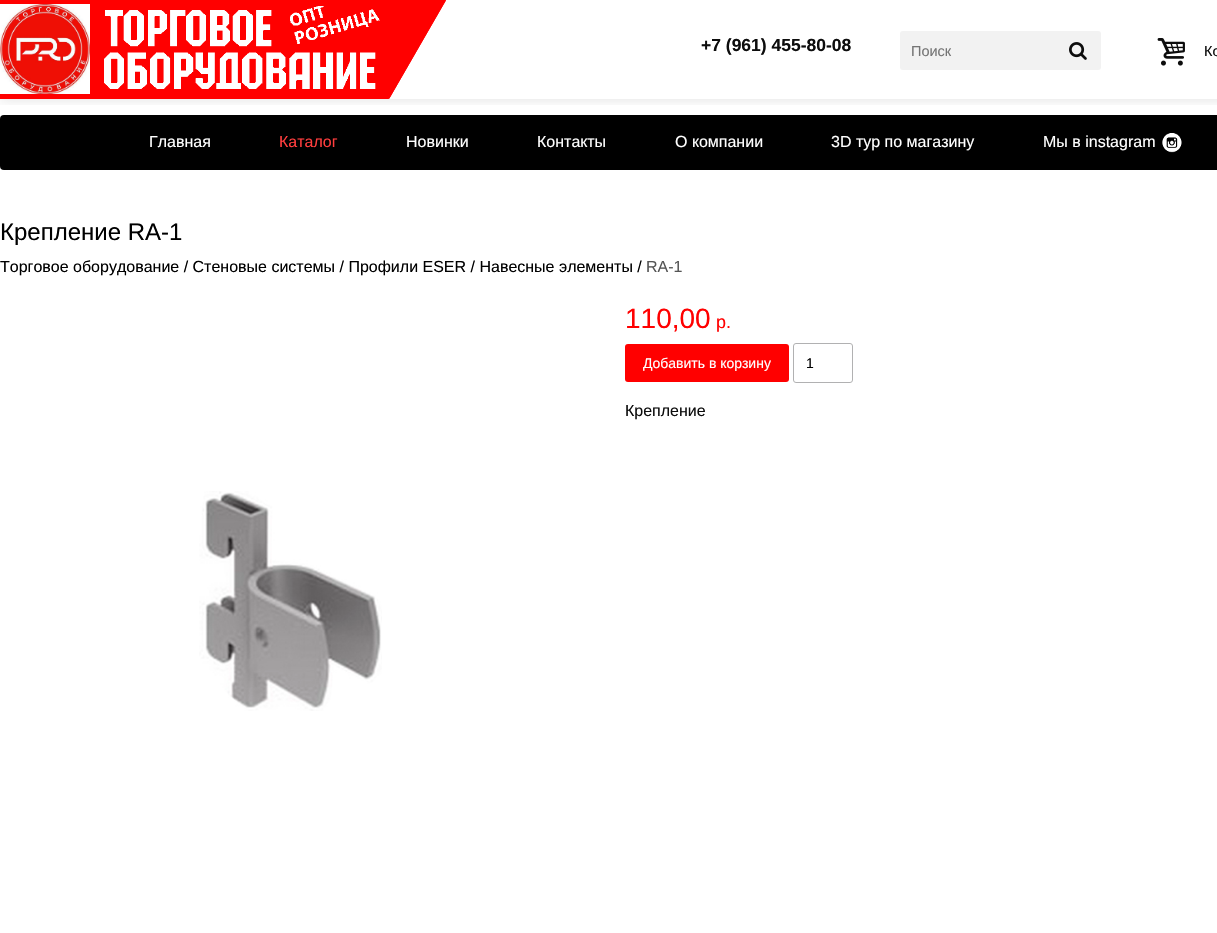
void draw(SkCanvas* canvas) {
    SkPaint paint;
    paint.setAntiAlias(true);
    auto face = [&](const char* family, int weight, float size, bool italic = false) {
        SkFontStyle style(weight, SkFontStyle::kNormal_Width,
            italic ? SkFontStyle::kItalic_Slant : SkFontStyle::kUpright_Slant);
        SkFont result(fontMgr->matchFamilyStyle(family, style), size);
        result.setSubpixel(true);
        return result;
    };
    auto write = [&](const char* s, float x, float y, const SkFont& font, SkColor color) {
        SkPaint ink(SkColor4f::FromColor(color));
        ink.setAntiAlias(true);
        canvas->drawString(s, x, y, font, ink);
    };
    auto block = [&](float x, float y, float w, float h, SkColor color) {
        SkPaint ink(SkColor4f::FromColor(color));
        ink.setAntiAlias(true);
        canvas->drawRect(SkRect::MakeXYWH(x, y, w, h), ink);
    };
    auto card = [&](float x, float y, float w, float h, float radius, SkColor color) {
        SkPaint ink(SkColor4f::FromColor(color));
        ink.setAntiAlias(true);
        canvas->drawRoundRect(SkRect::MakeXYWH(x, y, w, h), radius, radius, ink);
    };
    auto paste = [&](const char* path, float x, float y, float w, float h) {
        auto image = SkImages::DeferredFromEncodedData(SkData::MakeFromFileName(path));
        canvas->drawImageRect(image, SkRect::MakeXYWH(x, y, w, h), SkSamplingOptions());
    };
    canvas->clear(SK_ColorWHITE);
    canvas->save();
    canvas->clipRect(SkRect::MakeXYWH(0, 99, 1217, 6));
    paint.setColor(SkColorSetARGB(31, 0, 0, 0));
    paint.setMaskFilter(SkMaskFilter::MakeBlur(kNormal_SkBlurStyle, 6.5f));
    canvas->drawRect(SkRect::MakeXYWH(0, 0, 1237, 99), paint);
    paint.setMaskFilter(nullptr);
    canvas->restore();
    block(0, 0, 388, 99, SkColorSetRGB(255, 0, 0));
    paste("pic1.png", 0, 4, 90, 90);
    paint.setColor(SkColorSetRGB(255, 0, 0));
    canvas->drawPath(SkPathBuilder().moveTo(446, 0).lineTo(389, 99).lineTo(318, 58).lineTo(375, -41).close().detach(), paint);
    paint.setStyle(SkPaint::kStroke_Style);
    paint.setStrokeWidth(1);
    canvas->drawPath(SkPathBuilder().moveTo(445.5f, 0.5f).lineTo(389, 98.5f).lineTo(318.5f, 58).lineTo(375, -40).close().detach(), paint);
    paste("pic2.png", 104, 6, 276, 83);
    auto kFont1 = face("Liberation Sans", 700, 17.5f);
    write("+7 (961) 455-80-08", 701, 51, kFont1, SkColorSetRGB(13, 13, 13));
    card(900, 31, 201, 39, 3, SkColorSetRGB(242, 242, 242));
    auto kFont2 = face("Liberation Sans", 400, 14.5f);
    write("Поиск", 911, 56, kFont2, SkColorSetRGB(117, 117, 117));
    paste("pic3.png", 1069, 42, 18, 18);
    paste("pic4.png", 1157, 38, 28, 28);
    write("Ко", 1204, 56, kFont2, SkColorSetRGB(13, 13, 13));
    card(0, 115, 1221, 55, 4, SK_ColorBLACK);
    auto kFont3 = face("Liberation Sans", 400, 16);
    write("Главная", 149, 147, kFont3, SK_ColorWHITE);
    write("Каталог", 279, 147, kFont3, SkColorSetRGB(255, 61, 61));
    write("Новинки", 406, 147, kFont3, SK_ColorWHITE);
    write("Контакты", 537, 147, kFont3, SK_ColorWHITE);
    write("О компании", 675, 147, kFont3, SK_ColorWHITE);
    write("3D тур по магазину", 831, 147, kFont3, SK_ColorWHITE);
    paste("pic5.png", 1162, 133, 20, 20);
    write("Мы в instagram", 1043, 147, kFont3, SK_ColorWHITE);
    auto kFont4 = face("Liberation Sans", 400, 24);
    write("Крепление RA-1", 0, 240, kFont4, SK_ColorBLACK);
    write("Торговое оборудование / Стеновые системы / Профили ESER / Навесные элементы /", 0, 272, kFont3, SK_ColorBLACK);
    write("RA-1", 646, 272, kFont3, SkColorSetRGB(85, 85, 85));
    auto kFont5 = face("Liberation Sans", 400, 28);
    write("110,00", 625, 328, kFont5, SkColorSetRGB(255, 0, 0));
    auto kFont6 = face("Liberation Sans", 400, 18);
    write("р.", 716, 328, kFont6, SkColorSetRGB(255, 0, 0));
    card(625, 344, 164, 38, 3, SkColorSetRGB(255, 0, 0));
    auto kFont7 = face("Liberation Sans", 400, 14);
    write("Добавить в корзину", 643, 368, kFont7, SK_ColorWHITE);
    paint.setColor(SkColorSetRGB(177, 177, 178));
    canvas->drawRoundRect(SkRect::MakeXYWH(793.5f, 343.5f, 59, 39), 2.5f, 2.5f, paint);
    write("1", 806, 368, kFont7, SK_ColorBLACK);
    write("Крепление", 625, 416, kFont3, SkColorSetRGB(13, 13, 13));
    paste("pic6.png", 199, 491, 183, 220);
}
